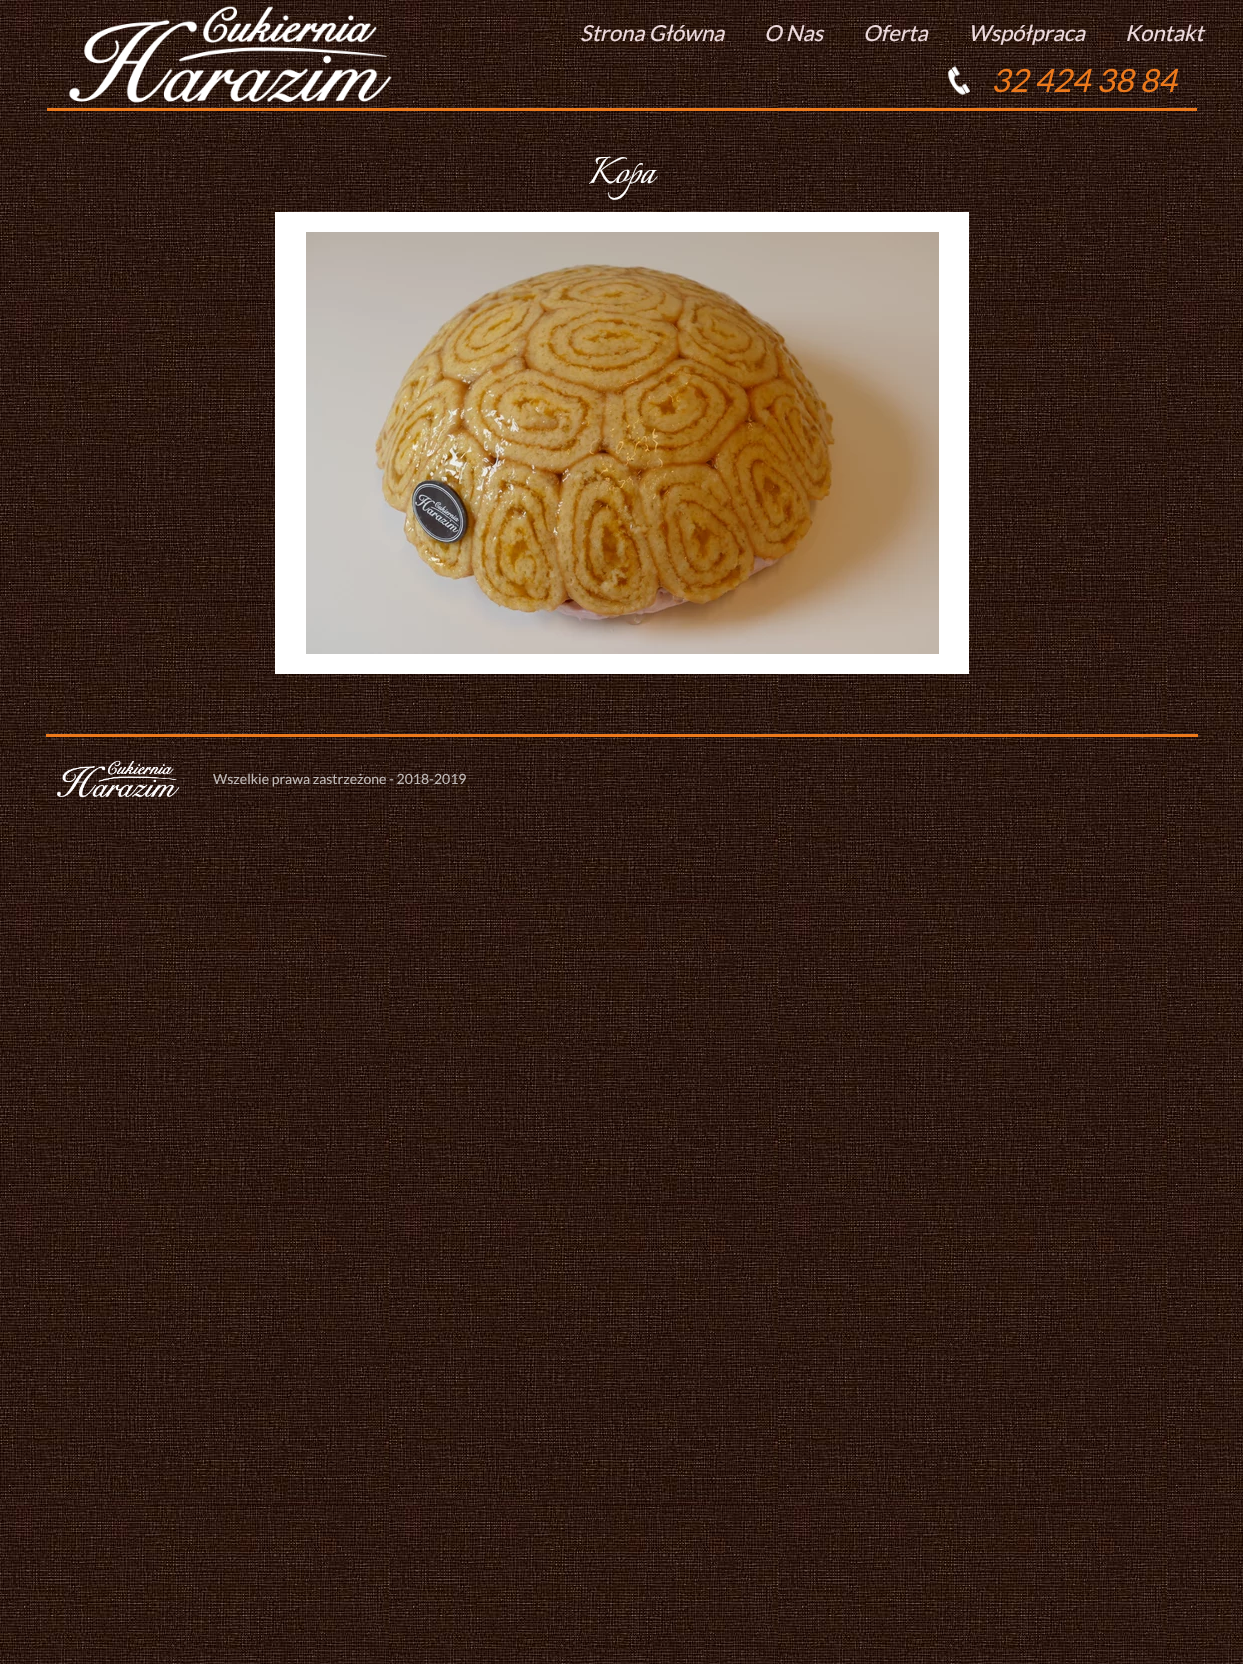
void draw(SkCanvas* canvas) {
    SkPaint paint;
    paint.setAntiAlias(true);
    auto face = [&](const char* family, int weight, float size, bool italic = false) {
        SkFontStyle style(weight, SkFontStyle::kNormal_Width,
            italic ? SkFontStyle::kItalic_Slant : SkFontStyle::kUpright_Slant);
        SkFont result(fontMgr->matchFamilyStyle(family, style), size);
        result.setSubpixel(true);
        return result;
    };
    auto write = [&](const char* s, float x, float y, const SkFont& font, SkColor color) {
        SkPaint ink(SkColor4f::FromColor(color));
        ink.setAntiAlias(true);
        canvas->drawString(s, x, y, font, ink);
    };
    auto block = [&](float x, float y, float w, float h, SkColor color) {
        SkPaint ink(SkColor4f::FromColor(color));
        ink.setAntiAlias(true);
        canvas->drawRect(SkRect::MakeXYWH(x, y, w, h), ink);
    };
    auto paste = [&](const char* path, float x, float y, float w, float h) {
        auto image = SkImages::DeferredFromEncodedData(SkData::MakeFromFileName(path));
        canvas->drawImageRect(image, SkRect::MakeXYWH(x, y, w, h), SkSamplingOptions());
    };
    canvas->clear(SK_ColorWHITE);
    paste("pic1.png", 0, 0, 1243, 1664);
    paste("pic2.png", 69, 6, 327, 97);
    auto kFont1 = face("Lato", 400, 22, true);
    write("Strona Główna", 580, 41, kFont1, SkColorSetRGB(237, 218, 221));
    write("O Nas", 764, 41, kFont1, SkColorSetRGB(237, 218, 221));
    write("Oferta", 863, 41, kFont1, SkColorSetRGB(237, 218, 221));
    write("Współpraca", 968, 41, kFont1, SkColorSetRGB(237, 218, 221));
    write("Kontakt", 1125, 41, kFont1, SkColorSetRGB(237, 218, 221));
    paste("pic3.png", 948, 66, 22, 29);
    auto kFont2 = face("Lato", 400, 32, true);
    write("32 424 38 84", 991, 92, kFont2, SkColorSetRGB(237, 121, 27));
    block(47, 108, 1150, 3, SkColorSetRGB(237, 121, 27));
    auto kFont3 = face("Italianno", 400, 48);
    write("Kopa", 589, 183, kFont3, SK_ColorWHITE);
    block(295, 232, 654, 422, SK_ColorWHITE);
    paint.setStyle(SkPaint::kStroke_Style);
    paint.setStrokeWidth(20);
    paint.setColor(SK_ColorWHITE);
    canvas->drawPath(SkPathBuilder().moveTo(285, 222).lineTo(959, 222).lineTo(959, 664).lineTo(285, 664).close().detach(), paint);
    paste("pic4.png", 306, 232, 633, 422);
    block(46, 734, 1152, 3, SkColorSetRGB(237, 121, 27));
    paste("pic5.png", 57, 760, 123, 38);
    auto kFont4 = face("Lato", 400, 14);
    write("Wszelkie prawa zastrzeżone - 2018-2019", 213, 784, kFont4, SkColorSetRGB(192, 186, 184));
}
